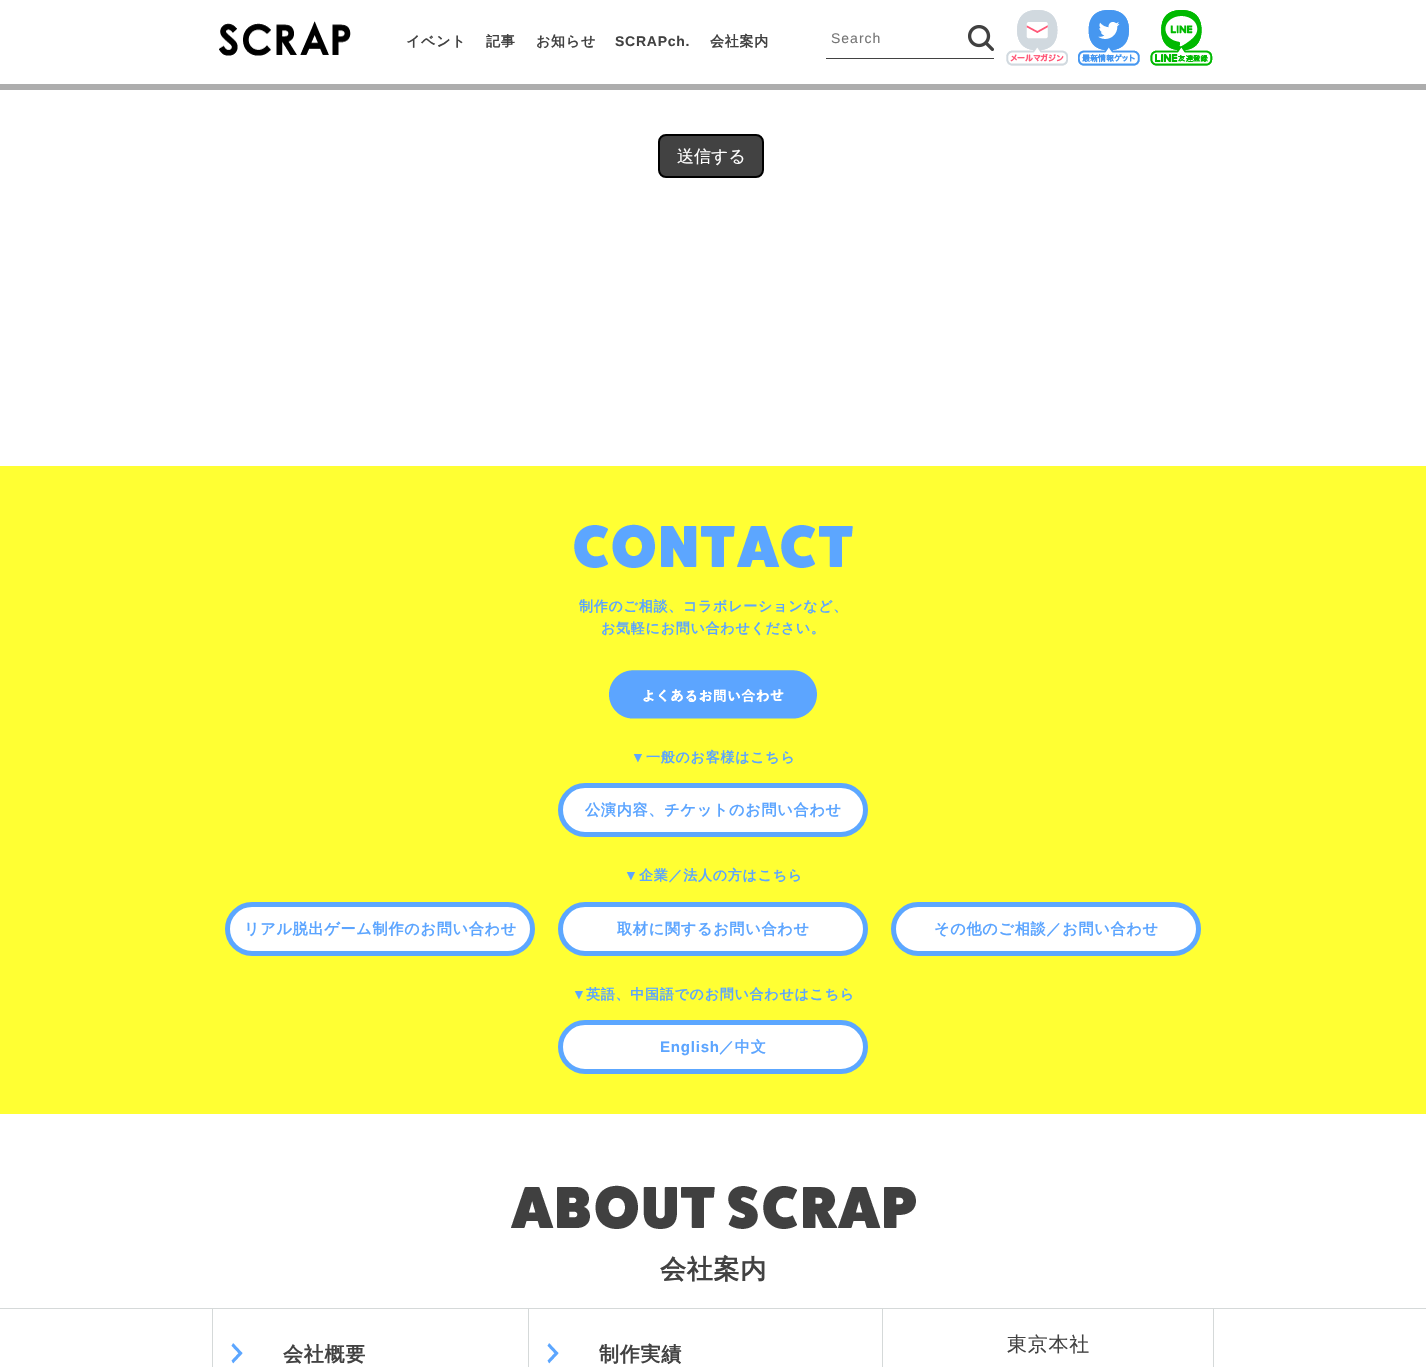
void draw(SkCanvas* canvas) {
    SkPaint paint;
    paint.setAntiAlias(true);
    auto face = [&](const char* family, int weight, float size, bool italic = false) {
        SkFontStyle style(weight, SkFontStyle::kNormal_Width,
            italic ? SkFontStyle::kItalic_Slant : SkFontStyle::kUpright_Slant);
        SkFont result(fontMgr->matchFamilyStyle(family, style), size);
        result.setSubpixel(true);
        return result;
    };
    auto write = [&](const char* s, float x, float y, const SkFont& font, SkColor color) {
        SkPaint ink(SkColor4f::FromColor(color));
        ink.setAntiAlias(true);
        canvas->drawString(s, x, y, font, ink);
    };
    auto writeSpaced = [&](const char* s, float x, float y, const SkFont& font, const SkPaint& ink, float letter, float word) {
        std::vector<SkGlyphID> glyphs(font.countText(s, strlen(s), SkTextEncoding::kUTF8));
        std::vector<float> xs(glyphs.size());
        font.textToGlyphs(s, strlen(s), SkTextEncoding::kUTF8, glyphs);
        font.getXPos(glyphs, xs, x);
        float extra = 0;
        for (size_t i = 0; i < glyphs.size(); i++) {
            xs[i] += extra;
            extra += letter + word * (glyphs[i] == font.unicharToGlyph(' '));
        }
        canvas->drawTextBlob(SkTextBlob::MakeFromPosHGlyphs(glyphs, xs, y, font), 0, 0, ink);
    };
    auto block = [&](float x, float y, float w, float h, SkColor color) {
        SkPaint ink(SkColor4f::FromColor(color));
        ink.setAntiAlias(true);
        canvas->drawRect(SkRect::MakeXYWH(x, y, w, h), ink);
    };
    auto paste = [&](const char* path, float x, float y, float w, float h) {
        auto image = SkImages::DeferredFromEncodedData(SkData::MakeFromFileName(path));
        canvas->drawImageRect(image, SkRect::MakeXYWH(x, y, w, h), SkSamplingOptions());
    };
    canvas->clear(SK_ColorWHITE);
    paste("pic1.png", 219, 21, 132, 35);
    auto kFont1 = face("WenQuanYi Zen Hei", 700, 14);
    paint.setColor(SkColorSetRGB(66, 66, 66));
    writeSpaced("イベント", 406, 46, kFont1, paint, 0.75f, 0);
    writeSpaced("記事", 486, 46, kFont1, paint, 0.75f, 0);
    writeSpaced("お知らせ", 536, 46, kFont1, paint, 0.75f, 0);
    auto kFont2 = face("Liberation Sans", 700, 14);
    writeSpaced("SCRAPch.", 615, 46, kFont2, paint, 0.75f, 0);
    writeSpaced("会社案内", 710, 46, kFont1, paint, 0.75f, 0);
    block(826, 58, 168, 1, SkColorSetRGB(66, 66, 66));
    auto kFont3 = face("Liberation Sans", 400, 14);
    paint.setColor(SkColorSetRGB(117, 117, 117));
    writeSpaced("Search", 831, 43, kFont3, paint, 1, 0);
    paste("pic2.png", 968, 25, 26, 26);
    paste("pic3.png", 1006, 10, 62, 56);
    paste("pic4.png", 1006, 10, 62, 56);
    paste("pic5.png", 1078, 10, 62, 56);
    paste("pic6.png", 1078, 10, 62, 56);
    paste("pic7.png", 1150, 10, 63, 56);
    paste("pic8.png", 1150, 10, 63, 56);
    block(0, 84, 1426, 6, SkColorSetARGB(102, 51, 51, 51));
    paint.setColor(SkColorSetRGB(66, 66, 66));
    canvas->drawRoundRect(SkRect::MakeXYWH(659, 135, 104, 42), 7, 7, paint);
    paint.setStyle(SkPaint::kStroke_Style);
    paint.setStrokeWidth(2);
    paint.setColor(SK_ColorBLACK);
    canvas->drawRoundRect(SkRect::MakeXYWH(659, 135, 104, 42), 7, 7, paint);
    auto kFont4 = face("WenQuanYi Zen Hei", 500, 17);
    write("送信する", 677, 162, kFont4, SK_ColorWHITE);
    block(0, 466, 1426, 648, SkColorSetRGB(255, 255, 51));
    paste("pic9.png", 574, 524, 279, 44);
    paint.setStyle(SkPaint::kFill_Style);
    paint.setColor(SkColorSetRGB(92, 165, 255));
    writeSpaced("制作のご相談、コラボレーションなど、", 579, 611, kFont1, paint, 0.75f, 0);
    writeSpaced("お気軽にお問い合わせください。", 601, 633, kFont1, paint, 0.75f, 0);
    paste("pic10.png", 609, 670, 208, 49);
    writeSpaced("▼", 631, 762, kFont2, paint, 0.75f, 0);
    writeSpaced("一般のお客様はこちら", 646, 762, kFont1, paint, 0.75f, 0);
    paint.setColor(SK_ColorWHITE);
    canvas->drawRoundRect(SkRect::MakeXYWH(560.5f, 785.5f, 305, 49), 24.5f, 24.5f, paint);
    paint.setStyle(SkPaint::kStroke_Style);
    paint.setStrokeWidth(5);
    paint.setColor(SkColorSetRGB(92, 167, 255));
    canvas->drawRoundRect(SkRect::MakeXYWH(560.5f, 785.5f, 305, 49), 24.5f, 24.5f, paint);
    auto kFont5 = face("WenQuanYi Zen Hei", 700, 15.1f);
    paint.setStyle(SkPaint::kFill_Style);
    paint.setColor(SkColorSetRGB(92, 165, 255));
    writeSpaced("公演内容、チケットのお問い合わせ", 585, 815, kFont5, paint, 0.75f, 0);
    writeSpaced("▼", 624, 880, kFont2, paint, 0.75f, 0);
    writeSpaced("企業／法人の方はこちら", 639, 880, kFont1, paint, 0.75f, 0);
    paint.setColor(SK_ColorWHITE);
    canvas->drawRoundRect(SkRect::MakeXYWH(227.5f, 904.5f, 305, 49), 24.5f, 24.5f, paint);
    paint.setStyle(SkPaint::kStroke_Style);
    paint.setColor(SkColorSetRGB(92, 167, 255));
    canvas->drawRoundRect(SkRect::MakeXYWH(227.5f, 904.5f, 305, 49), 24.5f, 24.5f, paint);
    paint.setStyle(SkPaint::kFill_Style);
    paint.setColor(SkColorSetRGB(92, 165, 255));
    writeSpaced("リアル脱出ゲーム制作のお問い合わせ", 244, 934, kFont5, paint, 0.75f, 0);
    paint.setColor(SK_ColorWHITE);
    canvas->drawRoundRect(SkRect::MakeXYWH(560.5f, 904.5f, 305, 49), 24.5f, 24.5f, paint);
    paint.setStyle(SkPaint::kStroke_Style);
    paint.setColor(SkColorSetRGB(92, 167, 255));
    canvas->drawRoundRect(SkRect::MakeXYWH(560.5f, 904.5f, 305, 49), 24.5f, 24.5f, paint);
    paint.setStyle(SkPaint::kFill_Style);
    paint.setColor(SkColorSetRGB(92, 165, 255));
    writeSpaced("取材に関するお問い合わせ", 617, 934, kFont5, paint, 0.75f, 0);
    paint.setColor(SK_ColorWHITE);
    canvas->drawRoundRect(SkRect::MakeXYWH(893.5f, 904.5f, 305, 49), 24.5f, 24.5f, paint);
    paint.setStyle(SkPaint::kStroke_Style);
    paint.setColor(SkColorSetRGB(92, 167, 255));
    canvas->drawRoundRect(SkRect::MakeXYWH(893.5f, 904.5f, 305, 49), 24.5f, 24.5f, paint);
    paint.setStyle(SkPaint::kFill_Style);
    paint.setColor(SkColorSetRGB(92, 165, 255));
    writeSpaced("その他のご相談／お問い合わせ", 934, 934, kFont5, paint, 0.75f, 0);
    writeSpaced("▼", 572, 999, kFont2, paint, 0.75f, 0);
    writeSpaced("英語、中国語でのお問い合わせはこちら", 586, 999, kFont1, paint, 0.75f, 0);
    paint.setColor(SK_ColorWHITE);
    canvas->drawRoundRect(SkRect::MakeXYWH(560.5f, 1022.5f, 305, 49), 24.5f, 24.5f, paint);
    paint.setStyle(SkPaint::kStroke_Style);
    paint.setColor(SkColorSetRGB(92, 167, 255));
    canvas->drawRoundRect(SkRect::MakeXYWH(560.5f, 1022.5f, 305, 49), 24.5f, 24.5f, paint);
    auto kFont6 = face("Liberation Sans", 700, 15.1f);
    paint.setStyle(SkPaint::kFill_Style);
    paint.setColor(SkColorSetRGB(92, 165, 255));
    writeSpaced("English", 660, 1052, kFont6, paint, 0.75f, 0);
    writeSpaced("／中文", 719, 1052, kFont5, paint, 0.75f, 0);
    paste("pic11.png", 511, 1185, 405, 44);
    auto kFont7 = face("WenQuanYi Zen Hei", 700, 26);
    paint.setColor(SkColorSetRGB(66, 66, 66));
    writeSpaced("会社案内", 660, 1278, kFont7, paint, 0.75f, 0);
    block(0, 1308, 1426, 1, SkColorSetRGB(213, 217, 217));
    block(1213, 1309, 1, 58, SkColorSetRGB(213, 217, 217));
    block(212, 1309, 1, 58, SkColorSetRGB(213, 217, 217));
    block(882, 1309, 1, 58, SkColorSetRGB(213, 217, 217));
    paste("pic12.png", 231, 1343, 12, 21);
    block(528, 1309, 1, 58, SkColorSetRGB(213, 217, 217));
    auto kFont8 = face("WenQuanYi Zen Hei", 700, 20);
    writeSpaced("会社概要", 283, 1361, kFont8, paint, 0.75f, 0);
    paste("pic12.png", 547, 1343, 12, 21);
    writeSpaced("制作実績", 599, 1361, kFont8, paint, 0.75f, 0);
    auto kFont9 = face("WenQuanYi Zen Hei", 500, 20);
    writeSpaced("東京本社", 1007, 1351, kFont9, paint, 0.75f, 0);
}
